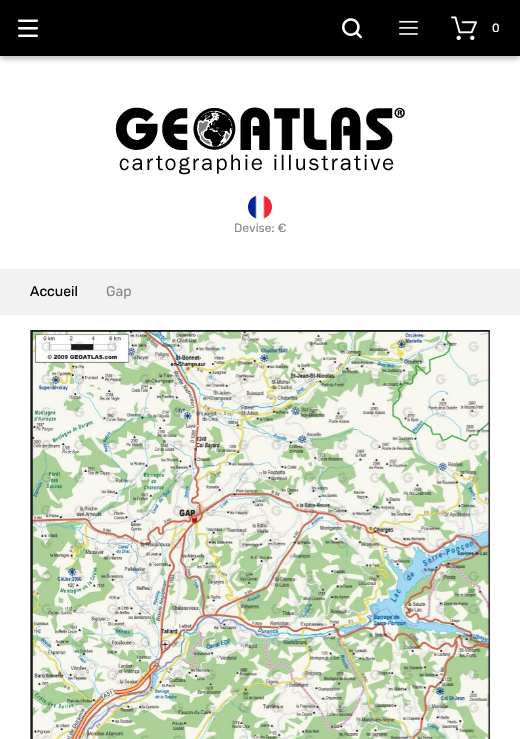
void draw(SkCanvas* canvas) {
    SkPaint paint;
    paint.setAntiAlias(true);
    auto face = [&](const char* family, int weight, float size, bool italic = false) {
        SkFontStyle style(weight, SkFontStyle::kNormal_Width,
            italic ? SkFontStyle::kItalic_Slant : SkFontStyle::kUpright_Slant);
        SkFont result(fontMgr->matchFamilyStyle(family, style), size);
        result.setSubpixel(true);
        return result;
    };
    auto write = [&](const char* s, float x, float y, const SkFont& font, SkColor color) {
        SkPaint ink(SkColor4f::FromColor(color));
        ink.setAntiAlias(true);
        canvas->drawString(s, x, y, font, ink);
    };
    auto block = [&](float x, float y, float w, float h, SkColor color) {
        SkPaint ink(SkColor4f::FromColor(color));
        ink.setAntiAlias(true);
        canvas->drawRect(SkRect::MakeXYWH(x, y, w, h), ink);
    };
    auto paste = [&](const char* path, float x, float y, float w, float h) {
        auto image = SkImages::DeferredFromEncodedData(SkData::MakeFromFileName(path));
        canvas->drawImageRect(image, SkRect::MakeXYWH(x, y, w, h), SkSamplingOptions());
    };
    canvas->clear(SK_ColorWHITE);
    paint.setColor(SkColorSetARGB(64, 0, 0, 0));
    paint.setMaskFilter(SkMaskFilter::MakeBlur(kNormal_SkBlurStyle, 2.5f));
    canvas->drawRect(SkRect::MakeXYWH(0, 3, 520, 56), paint);
    paint.setMaskFilter(nullptr);
    block(0, 0, 520, 56, SK_ColorBLACK);
    paste("pic1.png", 18, 19, 20, 18);
    paste("pic2.png", 342, 18, 20, 21);
    paste("pic3.png", 399, 20, 19, 15);
    paste("pic4.png", 451, 16, 26, 24);
    auto kFont1 = face("Rubik", 400, 12);
    write("0", 492, 32, kFont1, SK_ColorWHITE);
    paste("pic5.png", 115, 107, 290, 68);
    paste("pic6.png", 248, 195, 24, 24);
    write("Devise: €", 234, 232, kFont1, SkColorSetRGB(136, 136, 136));
    block(0, 269, 520, 46, SkColorSetRGB(242, 242, 242));
    auto kFont2 = face("Rubik", 400, 14);
    write("Accueil", 30, 296, kFont2, SK_ColorBLACK);
    write("Gap", 106, 296, kFont2, SkColorSetRGB(136, 136, 136));
    paste("pic7.png", 30, 330, 460, 409);
}
